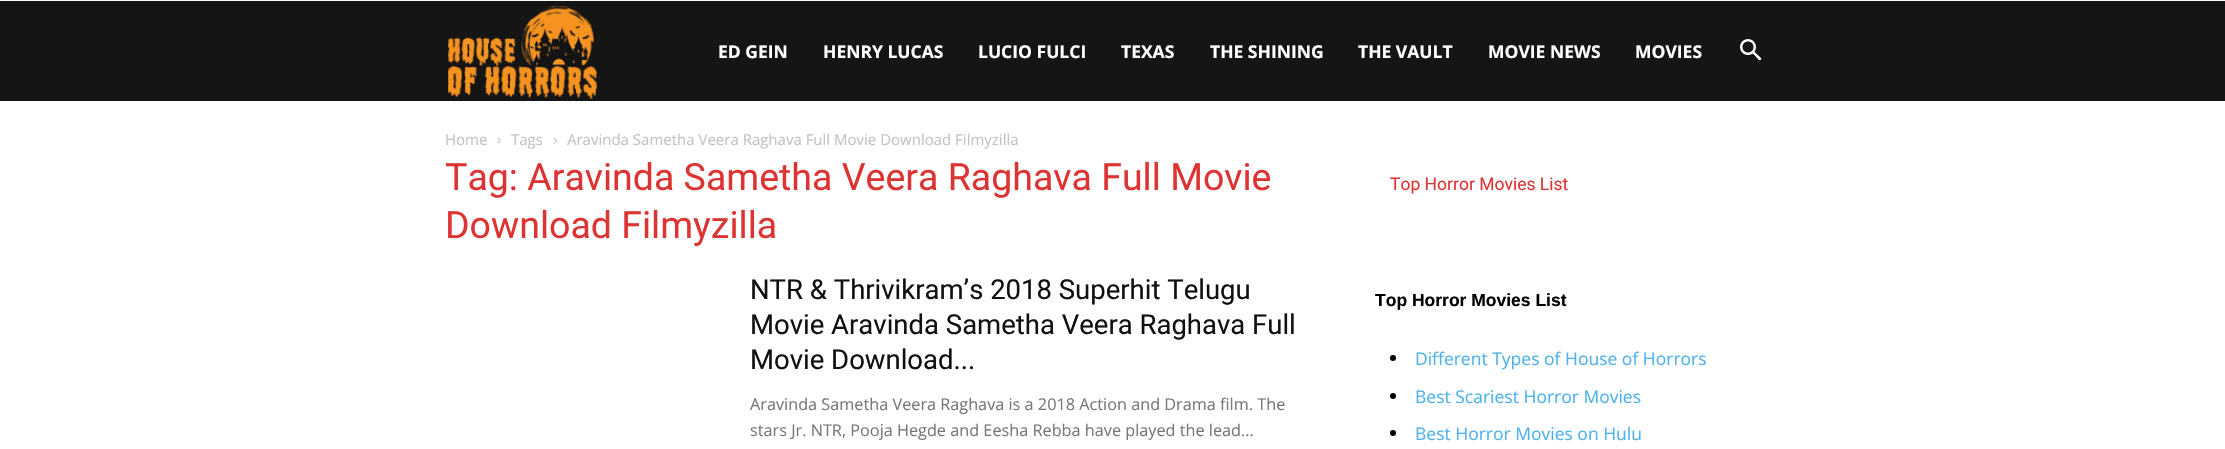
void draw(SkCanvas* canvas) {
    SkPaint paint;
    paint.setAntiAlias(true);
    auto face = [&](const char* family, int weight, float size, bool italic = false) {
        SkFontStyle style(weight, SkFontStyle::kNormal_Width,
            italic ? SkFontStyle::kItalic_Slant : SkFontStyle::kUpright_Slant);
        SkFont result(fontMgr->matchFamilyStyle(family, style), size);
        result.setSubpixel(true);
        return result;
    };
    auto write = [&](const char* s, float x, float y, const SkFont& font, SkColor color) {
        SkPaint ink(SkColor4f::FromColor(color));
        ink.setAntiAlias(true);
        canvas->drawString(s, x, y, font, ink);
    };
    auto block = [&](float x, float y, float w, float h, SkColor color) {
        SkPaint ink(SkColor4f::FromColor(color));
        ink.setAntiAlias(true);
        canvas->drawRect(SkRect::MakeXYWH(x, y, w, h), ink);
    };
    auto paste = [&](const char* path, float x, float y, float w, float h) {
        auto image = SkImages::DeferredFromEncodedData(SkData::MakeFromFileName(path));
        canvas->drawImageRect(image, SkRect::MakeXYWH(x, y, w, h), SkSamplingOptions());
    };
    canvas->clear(SK_ColorWHITE);
    block(0, 0, 2225, 1, SkColorSetRGB(249, 249, 249));
    block(0, 1, 2225, 100, SkColorSetRGB(21, 21, 21));
    paste("pic1.png", 448, 6, 149, 93);
    auto kFont1 = face("Open Sans", 700, 17.5f);
    write("ED GEIN", 718, 58, kFont1, SK_ColorWHITE);
    write("HENRY LUCAS", 823, 58, kFont1, SK_ColorWHITE);
    write("LUCIO FULCI", 978, 58, kFont1, SK_ColorWHITE);
    write("TEXAS", 1121, 58, kFont1, SK_ColorWHITE);
    write("THE SHINING", 1210, 58, kFont1, SK_ColorWHITE);
    write("THE VAULT", 1358, 58, kFont1, SK_ColorWHITE);
    write("MOVIE NEWS", 1488, 58, kFont1, SK_ColorWHITE);
    write("MOVIES", 1635, 58, kFont1, SK_ColorWHITE);
    paste("pic2.png", 1740, 39, 22, 22);
    auto kFont2 = face("Open Sans", 400, 15);
    write("Home", 445, 145, kFont2, SkColorSetRGB(195, 195, 195));
    paste("pic3.png", 497, 137, 4, 7);
    write("Tags", 511, 145, kFont2, SkColorSetRGB(195, 195, 195));
    paste("pic4.png", 553, 137, 4, 7);
    write("Aravinda Sametha Veera Raghava Full Movie Download Filmyzilla", 567, 145, kFont2, SkColorSetRGB(195, 195, 195));
    auto kFont3 = face("Roboto", 400, 37.5f);
    write("Tag: Aravinda Sametha Veera Raghava Full Movie", 445, 190, kFont3, SkColorSetRGB(221, 51, 51));
    write("Download Filmyzilla", 445, 238, kFont3, SkColorSetRGB(221, 51, 51));
    auto kFont4 = face("Roboto", 400, 27.5f);
    write("NTR & Thrivikram’s 2018 Superhit Telugu", 750, 299, kFont4, SkColorSetRGB(17, 17, 17));
    write("Movie Aravinda Sametha Veera Raghava Full", 750, 334, kFont4, SkColorSetRGB(17, 17, 17));
    write("Movie Download...", 750, 369, kFont4, SkColorSetRGB(17, 17, 17));
    auto kFont5 = face("Open Sans", 400, 16.25f);
    write("Aravinda Sametha Veera Raghava is a 2018 Action and Drama film. The", 750, 410, kFont5, SkColorSetRGB(119, 119, 119));
    write("stars Jr. NTR, Pooja Hegde and Eesha Rebba have played the lead...", 750, 436, kFont5, SkColorSetRGB(119, 119, 119));
    auto kFont6 = face("Roboto", 400, 17.5f);
    write("Top Horror Movies List", 1390, 190, kFont6, SkColorSetRGB(221, 51, 51));
    auto kFont7 = face("Liberation Sans", 700, 17.5f);
    write("Top Horror Movies List", 1375, 306, kFont7, SK_ColorBLACK);
    paint.setColor(SK_ColorBLACK);
    canvas->drawCircle(1393, 358, 3, paint);
    auto kFont8 = face("Open Sans", 400, 17.5f);
    write("Different Types of House of Horrors", 1415, 365, kFont8, SkColorSetRGB(77, 178, 236));
    canvas->drawCircle(1393, 396, 3, paint);
    write("Best Scariest Horror Movies", 1415, 403, kFont8, SkColorSetRGB(77, 178, 236));
    canvas->drawCircle(1393, 433, 3, paint);
    write("Best Horror Movies on Hulu", 1415, 440, kFont8, SkColorSetRGB(77, 178, 236));
}
